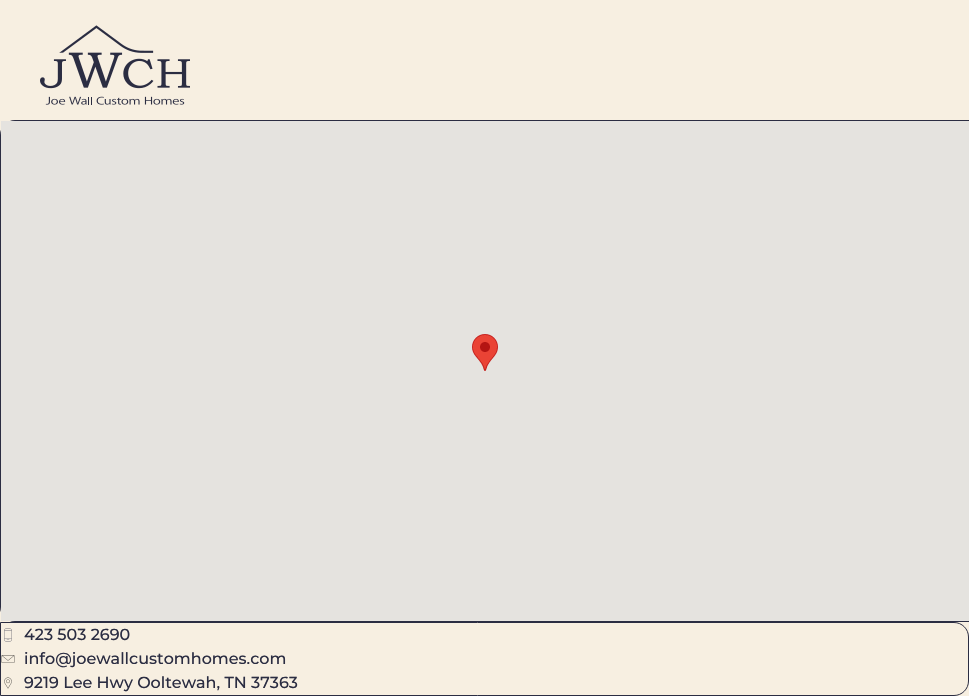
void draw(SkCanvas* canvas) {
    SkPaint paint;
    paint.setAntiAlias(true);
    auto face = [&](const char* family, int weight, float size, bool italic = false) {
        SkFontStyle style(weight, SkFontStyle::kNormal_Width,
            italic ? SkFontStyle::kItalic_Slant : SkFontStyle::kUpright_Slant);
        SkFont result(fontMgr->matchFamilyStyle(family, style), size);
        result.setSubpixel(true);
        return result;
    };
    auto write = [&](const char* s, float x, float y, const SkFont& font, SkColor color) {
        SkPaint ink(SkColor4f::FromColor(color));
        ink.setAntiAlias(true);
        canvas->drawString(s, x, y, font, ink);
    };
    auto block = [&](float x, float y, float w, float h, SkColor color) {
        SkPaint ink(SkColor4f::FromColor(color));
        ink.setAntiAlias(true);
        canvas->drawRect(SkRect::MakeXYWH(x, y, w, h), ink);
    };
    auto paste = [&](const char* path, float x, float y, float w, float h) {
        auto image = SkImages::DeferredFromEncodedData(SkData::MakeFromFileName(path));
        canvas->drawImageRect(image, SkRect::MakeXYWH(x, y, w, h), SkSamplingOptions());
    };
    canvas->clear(SkColorSetRGB(247, 239, 225));
    paste("pic1.png", 40, 25, 150, 80);
    paint.setColor(SkColorSetRGB(43, 45, 66));
    canvas->drawPath(SkPathBuilder(SkPathFillType::kEvenOdd).moveTo(15, 120).lineTo(969, 120).lineTo(969, 622).lineTo(15, 622).cubicTo(7, 622, 0, 615, 0, 607).lineTo(0, 135).cubicTo(0, 127, 7, 120, 15, 120).close().moveTo(15, 121).lineTo(969, 121).lineTo(969, 621).lineTo(15, 621).cubicTo(7, 621, 1, 615, 1, 607).lineTo(1, 135).cubicTo(1, 127, 7, 121, 15, 121).close().detach(), paint);
    block(1, 121, 968, 500, SkColorSetRGB(229, 227, 223));
    paste("pic2.png", 472, 334, 26, 37);
    paint.setStyle(SkPaint::kStroke_Style);
    paint.setStrokeWidth(1);
    canvas->drawPath(SkPathBuilder().moveTo(0.5f, 622.5f).lineTo(954, 622.5f).cubicTo(962, 622.5f, 968.5f, 629, 968.5f, 637).lineTo(968.5f, 681).cubicTo(968.5f, 689, 962, 695.5f, 954, 695.5f).lineTo(0.5f, 695.5f).close().detach(), paint);
    paste("pic3.png", 4, 628, 8, 14);
    auto kFont1 = face("Montserrat", 500, 16);
    write("423 503 2690", 24, 640, kFont1, SkColorSetRGB(43, 45, 66));
    paste("pic4.png", 1, 655, 14, 8);
    write("info@joewallcustomhomes.com", 24, 664, kFont1, SkColorSetRGB(43, 45, 66));
    paste("pic5.png", 4, 677, 8, 12);
    write("9219 Lee Hwy Ooltewah, TN 37363", 24, 688, kFont1, SkColorSetRGB(43, 45, 66));
}
